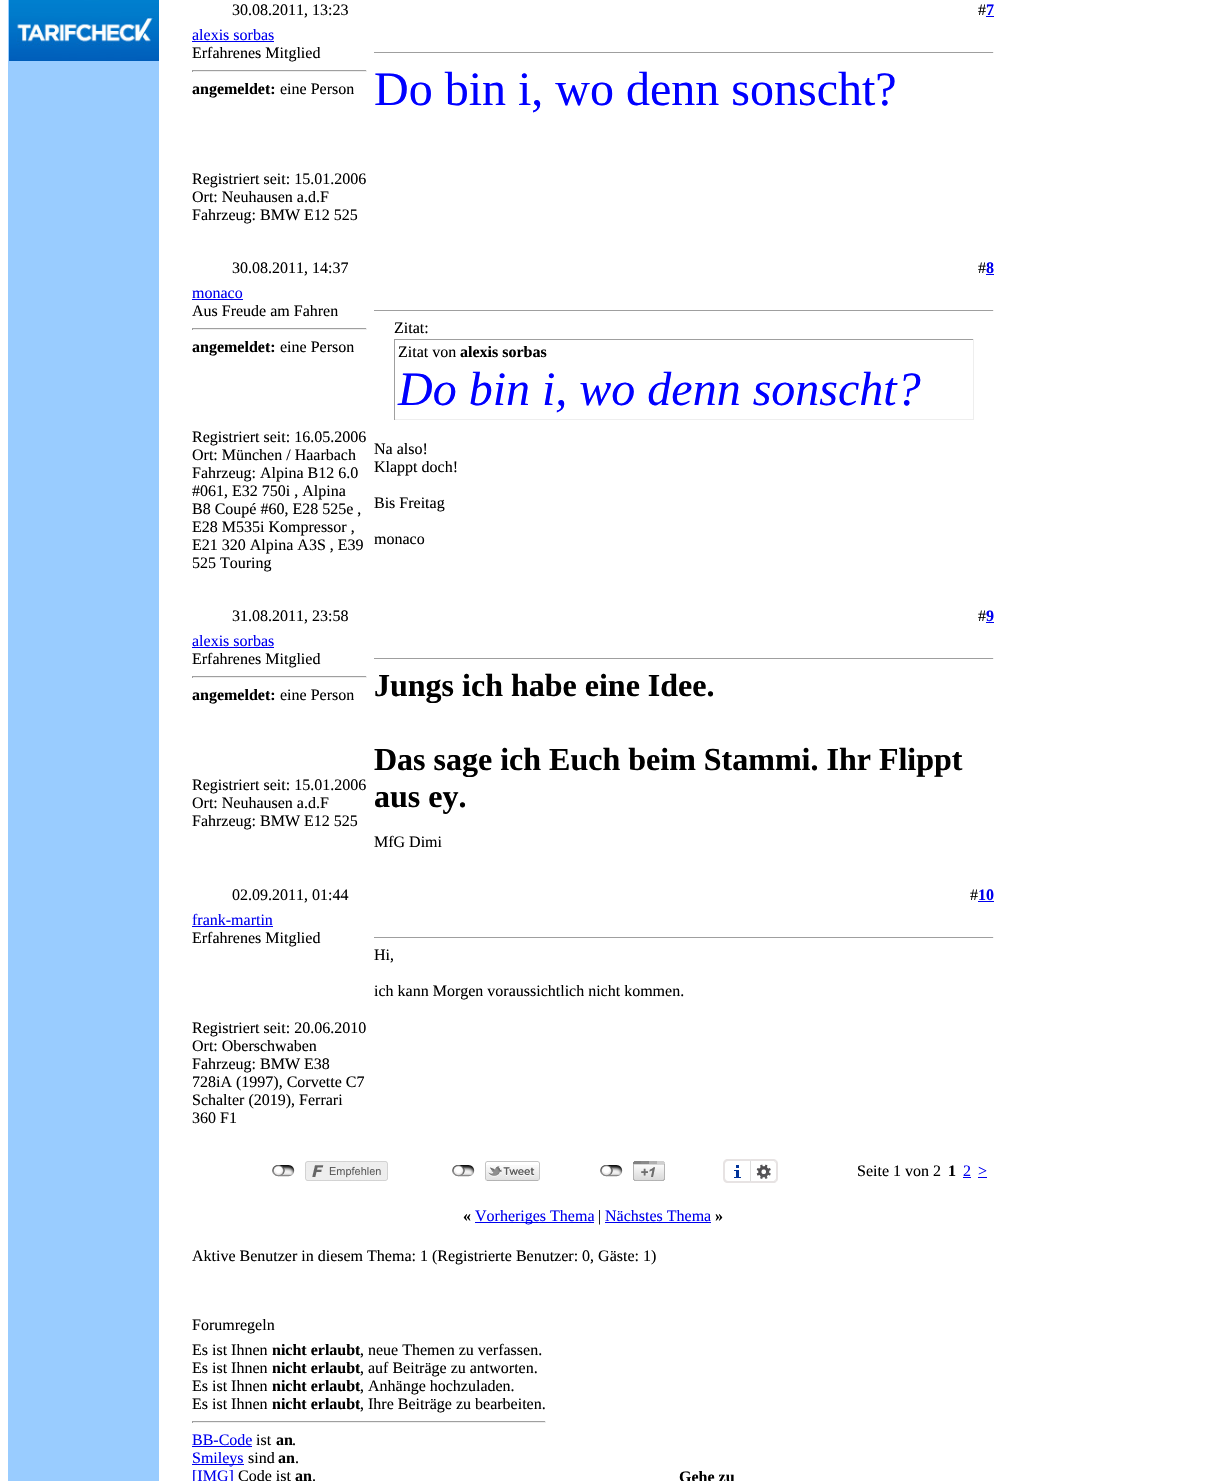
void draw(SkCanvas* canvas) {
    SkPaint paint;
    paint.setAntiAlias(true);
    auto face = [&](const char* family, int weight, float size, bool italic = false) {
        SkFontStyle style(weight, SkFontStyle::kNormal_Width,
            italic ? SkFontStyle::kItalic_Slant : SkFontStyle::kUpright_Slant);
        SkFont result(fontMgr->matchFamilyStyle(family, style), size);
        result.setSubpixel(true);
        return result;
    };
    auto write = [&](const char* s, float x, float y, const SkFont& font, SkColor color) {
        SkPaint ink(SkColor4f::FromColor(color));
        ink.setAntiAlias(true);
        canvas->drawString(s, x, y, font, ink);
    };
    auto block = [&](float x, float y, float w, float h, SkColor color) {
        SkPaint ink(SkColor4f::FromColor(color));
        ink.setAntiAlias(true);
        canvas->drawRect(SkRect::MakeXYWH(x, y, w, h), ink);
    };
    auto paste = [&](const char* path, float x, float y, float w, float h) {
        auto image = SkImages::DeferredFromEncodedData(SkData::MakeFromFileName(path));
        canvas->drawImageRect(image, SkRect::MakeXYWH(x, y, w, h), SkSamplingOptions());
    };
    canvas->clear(SK_ColorWHITE);
    block(8, 0, 151, 1481, SkColorSetRGB(153, 204, 255));
    paste("pic1.png", 9, 0, 150, 61);
    auto kFont1 = face("Liberation Serif", 400, 16);
    write("30.08.2011, 13:23", 232, 15, kFont1, SK_ColorBLACK);
    write("#", 978, 15, kFont1, SK_ColorBLACK);
    auto kFont2 = face("Liberation Serif", 700, 16);
    write("7", 986, 15, kFont2, SkColorSetRGB(0, 0, 238));
    block(986, 16, 8, 1, SkColorSetRGB(0, 0, 238));
    write("alexis sorbas", 192, 40, kFont1, SkColorSetRGB(0, 0, 238));
    block(192, 41, 82, 1, SkColorSetRGB(0, 0, 238));
    write("Erfahrenes Mitglied", 192, 58, kFont1, SK_ColorBLACK);
    block(192, 70, 175, 1, SkColorSetRGB(159, 159, 159));
    block(366, 70, 1, 2, SkColorSetRGB(238, 238, 238));
    block(192, 71, 175, 1, SkColorSetRGB(238, 238, 238));
    block(192, 70, 1, 2, SkColorSetRGB(159, 159, 159));
    write("angemeldet:", 192, 94, kFont2, SK_ColorBLACK);
    write("eine Person", 280, 94, kFont1, SK_ColorBLACK);
    write("Registriert seit: 15.01.2006", 192, 184, kFont1, SK_ColorBLACK);
    write("Ort: Neuhausen a.d.F", 192, 202, kFont1, SK_ColorBLACK);
    write("Fahrzeug: BMW E12 525", 192, 220, kFont1, SK_ColorBLACK);
    block(374, 52, 620, 1, SkColorSetRGB(159, 159, 159));
    block(993, 52, 1, 1, SkColorSetRGB(238, 238, 238));
    auto kFont3 = face("Liberation Serif", 400, 48);
    write("Do bin i, wo denn sonscht?", 374, 105, kFont3, SkColorSetRGB(0, 0, 255));
    write("30.08.2011, 14:37", 232, 273, kFont1, SK_ColorBLACK);
    write("#", 978, 273, kFont1, SK_ColorBLACK);
    write("8", 986, 273, kFont2, SkColorSetRGB(0, 0, 238));
    block(986, 274, 8, 1, SkColorSetRGB(0, 0, 238));
    write("monaco", 192, 298, kFont1, SkColorSetRGB(0, 0, 238));
    block(192, 299, 51, 1, SkColorSetRGB(0, 0, 238));
    write("Aus Freude am Fahren", 192, 316, kFont1, SK_ColorBLACK);
    block(192, 328, 175, 1, SkColorSetRGB(159, 159, 159));
    block(366, 328, 1, 2, SkColorSetRGB(238, 238, 238));
    block(192, 329, 175, 1, SkColorSetRGB(238, 238, 238));
    block(192, 328, 1, 2, SkColorSetRGB(159, 159, 159));
    write("angemeldet:", 192, 352, kFont2, SK_ColorBLACK);
    write("eine Person", 280, 352, kFont1, SK_ColorBLACK);
    write("Registriert seit: 16.05.2006", 192, 442, kFont1, SK_ColorBLACK);
    write("Ort: München / Haarbach", 192, 460, kFont1, SK_ColorBLACK);
    write("Fahrzeug: Alpina B12 6.0", 192, 478, kFont1, SK_ColorBLACK);
    write("#061, E32 750i , Alpina", 192, 496, kFont1, SK_ColorBLACK);
    write("B8 Coupé #60, E28 525e ,", 192, 514, kFont1, SK_ColorBLACK);
    write("E28 M535i Kompressor ,", 192, 532, kFont1, SK_ColorBLACK);
    write("E21 320 Alpina A3S , E39", 192, 550, kFont1, SK_ColorBLACK);
    write("525 Touring", 192, 568, kFont1, SK_ColorBLACK);
    block(374, 310, 620, 1, SkColorSetRGB(159, 159, 159));
    block(993, 310, 1, 1, SkColorSetRGB(238, 238, 238));
    write("Zitat:", 394, 333, kFont1, SK_ColorBLACK);
    block(394, 339, 580, 1, SkColorSetRGB(159, 159, 159));
    block(973, 339, 1, 81, SkColorSetRGB(238, 238, 238));
    block(394, 419, 580, 1, SkColorSetRGB(238, 238, 238));
    block(394, 339, 1, 81, SkColorSetRGB(159, 159, 159));
    write("Zitat von", 398, 357, kFont1, SK_ColorBLACK);
    write("alexis sorbas", 460, 357, kFont2, SK_ColorBLACK);
    auto kFont4 = face("Liberation Serif", 400, 48, true);
    write("Do bin i, wo denn sonscht?", 398, 405, kFont4, SkColorSetRGB(0, 0, 255));
    write("Na also!", 374, 454, kFont1, SK_ColorBLACK);
    write("Klappt doch!", 374, 472, kFont1, SK_ColorBLACK);
    write("Bis Freitag", 374, 508, kFont1, SK_ColorBLACK);
    write("monaco", 374, 544, kFont1, SK_ColorBLACK);
    write("31.08.2011, 23:58", 232, 621, kFont1, SK_ColorBLACK);
    write("#", 978, 621, kFont1, SK_ColorBLACK);
    write("9", 986, 621, kFont2, SkColorSetRGB(0, 0, 238));
    block(986, 622, 8, 1, SkColorSetRGB(0, 0, 238));
    write("alexis sorbas", 192, 646, kFont1, SkColorSetRGB(0, 0, 238));
    block(192, 647, 82, 1, SkColorSetRGB(0, 0, 238));
    write("Erfahrenes Mitglied", 192, 664, kFont1, SK_ColorBLACK);
    block(192, 676, 175, 1, SkColorSetRGB(159, 159, 159));
    block(366, 676, 1, 2, SkColorSetRGB(238, 238, 238));
    block(192, 677, 175, 1, SkColorSetRGB(238, 238, 238));
    block(192, 676, 1, 2, SkColorSetRGB(159, 159, 159));
    write("angemeldet:", 192, 700, kFont2, SK_ColorBLACK);
    write("eine Person", 280, 700, kFont1, SK_ColorBLACK);
    write("Registriert seit: 15.01.2006", 192, 790, kFont1, SK_ColorBLACK);
    write("Ort: Neuhausen a.d.F", 192, 808, kFont1, SK_ColorBLACK);
    write("Fahrzeug: BMW E12 525", 192, 826, kFont1, SK_ColorBLACK);
    block(374, 658, 620, 1, SkColorSetRGB(159, 159, 159));
    block(993, 658, 1, 1, SkColorSetRGB(238, 238, 238));
    auto kFont5 = face("Liberation Serif", 700, 32);
    write("Jungs ich habe eine Idee.", 374, 696, kFont5, SK_ColorBLACK);
    write("Das sage ich Euch beim Stammi. Ihr Flippt", 374, 770, kFont5, SK_ColorBLACK);
    write("aus ey.", 374, 807, kFont5, SK_ColorBLACK);
    write("MfG Dimi", 374, 847, kFont1, SK_ColorBLACK);
    write("02.09.2011, 01:44", 232, 900, kFont1, SK_ColorBLACK);
    write("#", 970, 900, kFont1, SK_ColorBLACK);
    write("10", 978, 900, kFont2, SkColorSetRGB(0, 0, 238));
    block(978, 901, 16, 1, SkColorSetRGB(0, 0, 238));
    write("frank-martin", 192, 925, kFont1, SkColorSetRGB(0, 0, 238));
    block(192, 926, 81, 1, SkColorSetRGB(0, 0, 238));
    write("Erfahrenes Mitglied", 192, 943, kFont1, SK_ColorBLACK);
    write("Registriert seit: 20.06.2010", 192, 1033, kFont1, SK_ColorBLACK);
    write("Ort: Oberschwaben", 192, 1051, kFont1, SK_ColorBLACK);
    write("Fahrzeug: BMW E38", 192, 1069, kFont1, SK_ColorBLACK);
    write("728iA (1997), Corvette C7", 192, 1087, kFont1, SK_ColorBLACK);
    write("Schalter (2019), Ferrari", 192, 1105, kFont1, SK_ColorBLACK);
    write("360 F1", 192, 1123, kFont1, SK_ColorBLACK);
    block(374, 937, 620, 1, SkColorSetRGB(159, 159, 159));
    block(993, 937, 1, 1, SkColorSetRGB(238, 238, 238));
    write("Hi,", 374, 960, kFont1, SK_ColorBLACK);
    write("ich kann Morgen voraussichtlich nicht kommen.", 374, 996, kFont1, SK_ColorBLACK);
    paste("pic2.png", 272, 1165, 23, 12);
    paste("pic3.png", 305, 1161, 83, 20);
    paste("pic2.png", 452, 1165, 23, 12);
    paste("pic4.png", 485, 1161, 55, 20);
    paste("pic2.png", 600, 1165, 23, 12);
    paste("pic5.png", 633, 1161, 32, 20);
    paste("pic6.png", 734, 1165, 7, 13);
    paint.setColor(SkColorSetRGB(231, 227, 227));
    canvas->drawPath(SkPathBuilder(SkPathFillType::kEvenOdd).moveTo(728, 1159).lineTo(750, 1159).lineTo(750, 1183).lineTo(728, 1183).cubicTo(725, 1183, 723, 1181, 723, 1178).lineTo(723, 1164).cubicTo(723, 1161, 725, 1159, 728, 1159).close().moveTo(728, 1161).lineTo(750, 1161).lineTo(750, 1181).lineTo(728, 1181).cubicTo(726.5f, 1181, 725, 1179.5f, 725, 1178).lineTo(725, 1164).cubicTo(725, 1162.5f, 726.5f, 1161, 728, 1161).close().detach(), paint);
    paste("pic7.png", 756, 1164, 15, 15);
    canvas->drawPath(SkPathBuilder().moveTo(750, 1159).lineTo(751, 1161).lineTo(773, 1161).cubicTo(774, 1161, 774.5f, 1161.5f, 775, 1162).lineTo(776.5f, 1160.5f).cubicTo(776, 1159.5f, 774.5f, 1159, 773, 1159).close().detach(), paint);
    canvas->drawPath(SkPathBuilder().moveTo(778, 1178).lineTo(778, 1164).cubicTo(778, 1162.5f, 777.5f, 1161, 776.5f, 1160.5f).lineTo(775, 1162).cubicTo(775.5f, 1162.5f, 776, 1163, 776, 1164).lineTo(776, 1178).cubicTo(776, 1179, 775.5f, 1179.5f, 775, 1180).lineTo(776.5f, 1181.5f).cubicTo(777.5f, 1181, 778, 1179.5f, 778, 1178).close().detach(), paint);
    canvas->drawPath(SkPathBuilder().moveTo(773, 1183).cubicTo(774.5f, 1183, 776, 1182.5f, 776.5f, 1181.5f).lineTo(775, 1180).cubicTo(774.5f, 1180.5f, 774, 1181, 773, 1181).lineTo(751, 1181).lineTo(750, 1183).close().detach(), paint);
    paint.setColor(SkColorSetRGB(221, 221, 221));
    canvas->drawPath(SkPathBuilder().moveTo(750, 1159).lineTo(750, 1183).lineTo(751, 1181).lineTo(751, 1161).close().detach(), paint);
    write("Seite 1 von 2", 857, 1176, kFont1, SK_ColorBLACK);
    write("1", 948, 1176, kFont2, SK_ColorBLACK);
    write("2", 963, 1176, kFont1, SkColorSetRGB(0, 0, 238));
    block(963, 1177, 8, 1, SkColorSetRGB(0, 0, 238));
    write(">", 978, 1176, kFont1, SkColorSetRGB(0, 0, 238));
    block(978, 1177, 9, 1, SkColorSetRGB(0, 0, 238));
    write("«", 463, 1221, kFont2, SK_ColorBLACK);
    block(475, 1222, 119, 1, SkColorSetRGB(0, 0, 238));
    write("Vorheriges Thema", 475, 1221, kFont1, SkColorSetRGB(0, 0, 238));
    write("|", 598, 1221, kFont1, SK_ColorBLACK);
    write("Nächstes Thema", 605, 1221, kFont1, SkColorSetRGB(0, 0, 238));
    block(605, 1222, 106, 1, SkColorSetRGB(0, 0, 238));
    write("»", 715, 1221, kFont2, SK_ColorBLACK);
    write("Aktive Benutzer in diesem Thema: 1 (Registrierte Benutzer: 0, Gäste: 1)", 192, 1261, kFont1, SK_ColorBLACK);
    write("Forumregeln", 192, 1330, kFont1, SK_ColorBLACK);
    write("Es ist Ihnen", 192, 1355, kFont1, SK_ColorBLACK);
    write("nicht erlaubt", 272, 1355, kFont2, SK_ColorBLACK);
    write(", neue Themen zu verfassen.", 360, 1355, kFont1, SK_ColorBLACK);
    write("Es ist Ihnen", 192, 1373, kFont1, SK_ColorBLACK);
    write("nicht erlaubt", 272, 1373, kFont2, SK_ColorBLACK);
    write(", auf Beiträge zu antworten.", 360, 1373, kFont1, SK_ColorBLACK);
    write("Es ist Ihnen", 192, 1391, kFont1, SK_ColorBLACK);
    write("nicht erlaubt", 272, 1391, kFont2, SK_ColorBLACK);
    write(", Anhänge hochzuladen.", 360, 1391, kFont1, SK_ColorBLACK);
    write("Es ist Ihnen", 192, 1409, kFont1, SK_ColorBLACK);
    write("nicht erlaubt", 272, 1409, kFont2, SK_ColorBLACK);
    write(", Ihre Beiträge zu bearbeiten.", 360, 1409, kFont1, SK_ColorBLACK);
    block(192, 1421, 354, 1, SkColorSetRGB(159, 159, 159));
    block(545, 1421, 1, 2, SkColorSetRGB(238, 238, 238));
    block(192, 1422, 354, 1, SkColorSetRGB(238, 238, 238));
    block(192, 1421, 1, 2, SkColorSetRGB(159, 159, 159));
    write("BB-Code", 192, 1445, kFont1, SkColorSetRGB(0, 0, 238));
    block(192, 1446, 60, 1, SkColorSetRGB(0, 0, 238));
    write("ist", 256, 1445, kFont1, SK_ColorBLACK);
    write("an", 276, 1445, kFont2, SK_ColorBLACK);
    write(".", 292, 1445, kFont1, SK_ColorBLACK);
    block(192, 1464, 52, 1, SkColorSetRGB(0, 0, 238));
    write("Smileys", 192, 1463, kFont1, SkColorSetRGB(0, 0, 238));
    write("sind", 248, 1463, kFont1, SK_ColorBLACK);
    write("an", 278, 1463, kFont2, SK_ColorBLACK);
    write(".", 295, 1463, kFont1, SK_ColorBLACK);
    write("[IMG]", 192, 1481, kFont1, SkColorSetRGB(0, 0, 238));
    write("Code ist", 238, 1481, kFont1, SK_ColorBLACK);
    write("an", 295, 1481, kFont2, SK_ColorBLACK);
    write(".", 312, 1481, kFont1, SK_ColorBLACK);
    write("Gehe zu", 679, 1482, kFont2, SK_ColorBLACK);
}
